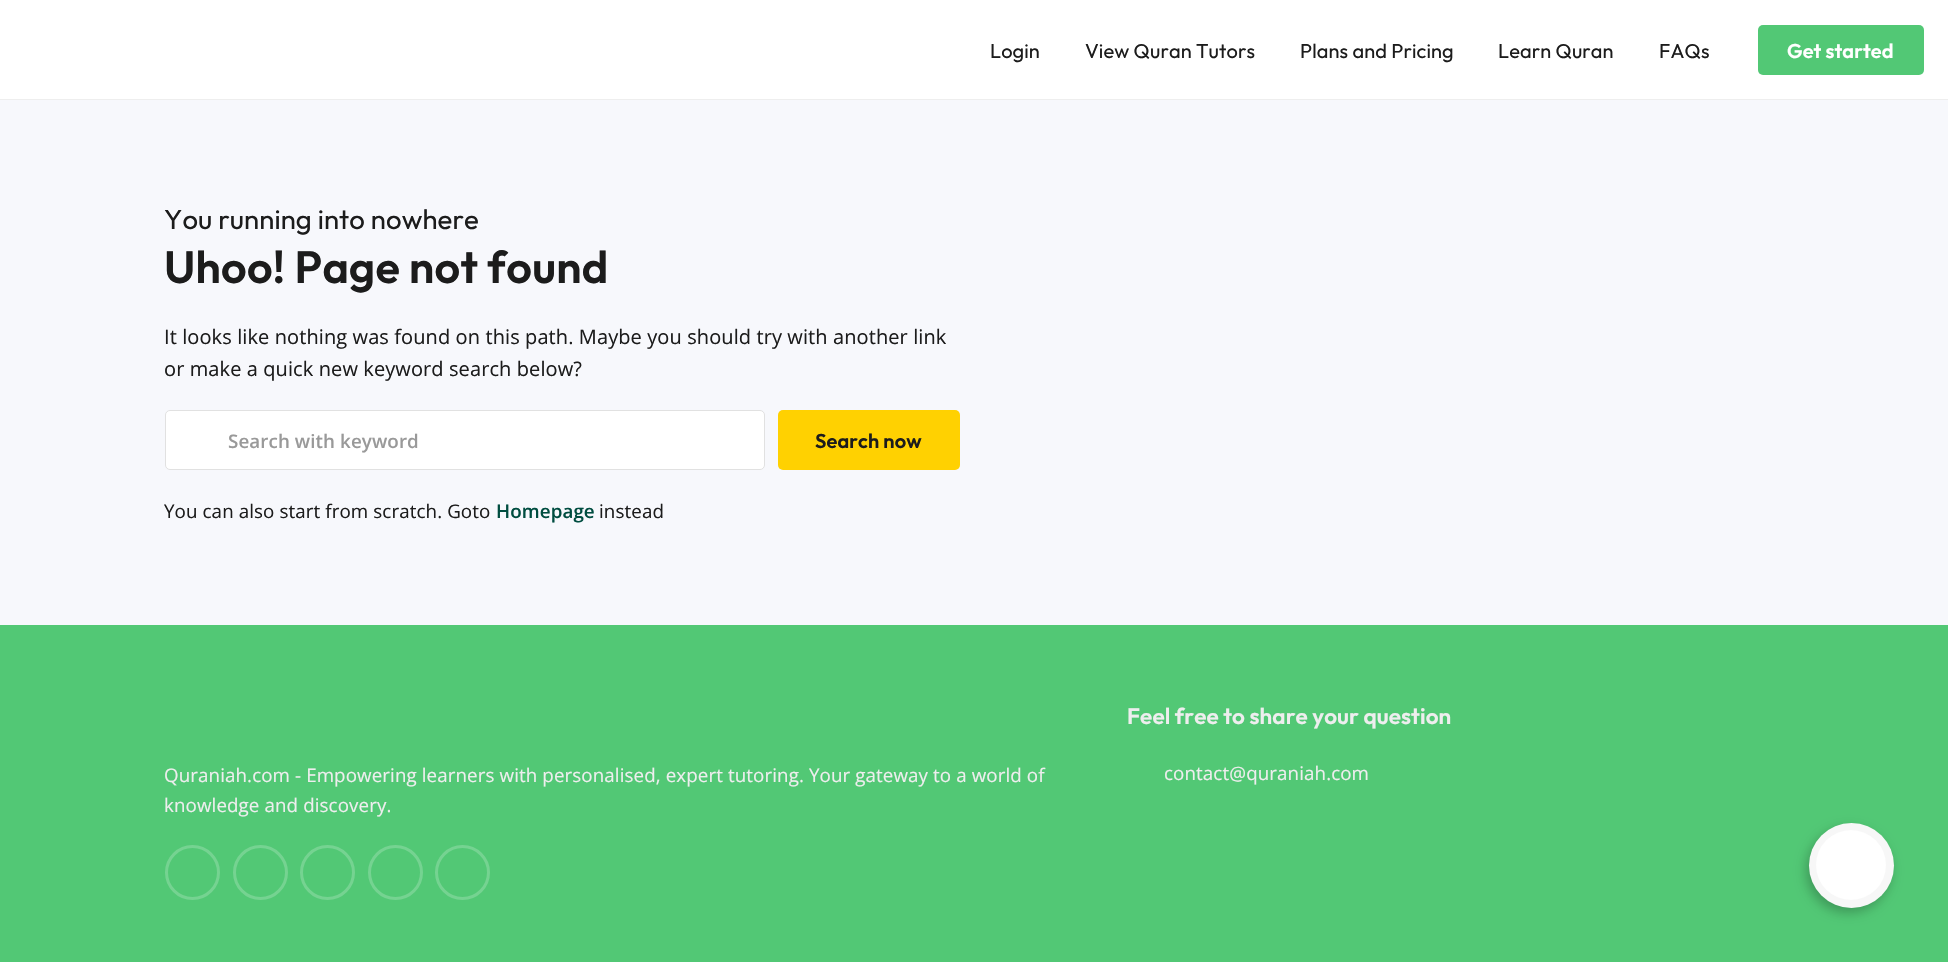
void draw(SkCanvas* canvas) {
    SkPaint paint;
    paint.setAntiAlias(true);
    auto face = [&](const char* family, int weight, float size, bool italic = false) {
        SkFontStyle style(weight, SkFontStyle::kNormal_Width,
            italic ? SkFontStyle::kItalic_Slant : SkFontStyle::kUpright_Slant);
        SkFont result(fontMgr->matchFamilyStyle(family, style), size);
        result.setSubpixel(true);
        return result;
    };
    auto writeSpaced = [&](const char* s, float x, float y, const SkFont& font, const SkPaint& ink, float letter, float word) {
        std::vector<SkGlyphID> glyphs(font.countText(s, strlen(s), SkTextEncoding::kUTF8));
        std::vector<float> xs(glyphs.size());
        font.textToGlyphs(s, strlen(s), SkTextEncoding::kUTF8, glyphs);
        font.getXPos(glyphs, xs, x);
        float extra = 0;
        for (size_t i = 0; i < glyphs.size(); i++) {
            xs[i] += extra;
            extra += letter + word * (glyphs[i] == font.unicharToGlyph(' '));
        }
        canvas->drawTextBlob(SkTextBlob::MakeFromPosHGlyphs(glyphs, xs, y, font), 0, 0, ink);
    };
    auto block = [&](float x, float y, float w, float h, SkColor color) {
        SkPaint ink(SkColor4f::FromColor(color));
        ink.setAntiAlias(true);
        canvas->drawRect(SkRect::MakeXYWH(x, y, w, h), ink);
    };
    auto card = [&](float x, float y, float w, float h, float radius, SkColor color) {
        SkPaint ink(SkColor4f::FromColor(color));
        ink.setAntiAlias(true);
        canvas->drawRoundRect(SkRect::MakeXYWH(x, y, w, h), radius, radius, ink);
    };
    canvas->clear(SK_ColorWHITE);
    block(0, 99, 1948, 1, SkColorSetRGB(238, 238, 238));
    auto kFont1 = face("Outfit", 400, 20);
    paint.setColor(SkColorSetRGB(28, 28, 28));
    writeSpaced("Login", 990, 58, kFont1, paint, 0.1f, 0);
    writeSpaced("View Quran Tutors", 1085, 58, kFont1, paint, 0.1f, 0);
    writeSpaced("Plans and Pricing", 1300, 58, kFont1, paint, 0.1f, 0);
    writeSpaced("Learn Quran", 1498, 58, kFont1, paint, 0.1f, 0);
    writeSpaced("FAQs", 1659, 58, kFont1, paint, 0.1f, 0);
    card(1758, 25, 166, 50, 5, SkColorSetRGB(82, 200, 117));
    auto kFont2 = face("Outfit", 600, 20);
    paint.setColor(SK_ColorWHITE);
    writeSpaced("Get started", 1787, 58, kFont2, paint, 0.1f, 0);
    block(0, 100, 1948, 525, SkColorSetRGB(247, 248, 252));
    auto kFont3 = face("Outfit", 400, 27.5f);
    paint.setColor(SkColorSetRGB(28, 28, 28));
    writeSpaced("You running into nowhere", 164, 229, kFont3, paint, 0.1f, 0);
    auto kFont4 = face("Outfit", 600, 45);
    writeSpaced("Uhoo! Page not found", 164, 283, kFont4, paint, 0.25f, 0);
    auto kFont5 = face("Open Sans", 400, 20);
    writeSpaced("It looks like nothing was found on this path. Maybe you should try with another link", 164, 344, kFont5, paint, 0.1f, 0);
    writeSpaced("or make a quick new keyword search below?", 164, 376, kFont5, paint, 0.1f, 0);
    paint.setColor(SK_ColorWHITE);
    canvas->drawRoundRect(SkRect::MakeXYWH(165.5f, 410.5f, 599, 59), 4.5f, 4.5f, paint);
    paint.setStyle(SkPaint::kStroke_Style);
    paint.setStrokeWidth(1);
    paint.setColor(SkColorSetRGB(225, 225, 225));
    canvas->drawRoundRect(SkRect::MakeXYWH(165.5f, 410.5f, 599, 59), 4.5f, 4.5f, paint);
    auto kFont6 = face("Open Sans", 600, 18.75f);
    paint.setStyle(SkPaint::kFill_Style);
    paint.setColor(SkColorSetRGB(153, 153, 153));
    writeSpaced("Search with keyword", 228, 448, kFont6, paint, 0.1f, 0);
    card(778, 410, 182, 60, 5, SkColorSetRGB(255, 209, 1));
    paint.setColor(SkColorSetRGB(28, 28, 28));
    writeSpaced("Search now", 815, 448, kFont2, paint, 0.1f, 0);
    auto kFont7 = face("Open Sans", 400, 18.75f);
    writeSpaced("You can also start from scratch. Goto", 164, 518, kFont7, paint, 0.1f, 0);
    paint.setColor(SkColorSetRGB(0, 77, 64));
    writeSpaced("Homepage", 496, 518, kFont6, paint, 0.1f, 0);
    paint.setColor(SkColorSetRGB(28, 28, 28));
    writeSpaced("instead", 599, 518, kFont7, paint, 0.1f, 0);
    block(0, 625, 1948, 337, SkColorSetRGB(82, 200, 117));
    auto kFont8 = face("Outfit", 600, 22.5f);
    paint.setColor(SkColorSetRGB(238, 238, 238));
    writeSpaced("Feel free to share your question", 1127, 724, kFont8, paint, 0.1f, 0);
    writeSpaced("contact@quraniah.com", 1164, 780, kFont7, paint, 0.1f, 0);
    writeSpaced("Quraniah.com - Empowering learners with personalised, expert tutoring. Your gateway to a world of", 164, 782, kFont7, paint, 0.1f, 0);
    writeSpaced("knowledge and discovery.", 164, 812, kFont7, paint, 0.1f, 0);
    paint.setStyle(SkPaint::kStroke_Style);
    paint.setStrokeWidth(3);
    paint.setColor(SkColorSetRGB(117, 211, 145));
    canvas->drawCircle(192.5f, 872.5f, 26, paint);
    canvas->drawCircle(260.5f, 872.5f, 26, paint);
    canvas->drawCircle(327.5f, 872.5f, 26, paint);
    canvas->drawCircle(395.5f, 872.5f, 26, paint);
    canvas->drawCircle(462.5f, 872.5f, 26, paint);
    paint.setStyle(SkPaint::kFill_Style);
    paint.setColor(SkColorSetARGB(61, 0, 0, 0));
    paint.setMaskFilter(SkMaskFilter::MakeBlur(kNormal_SkBlurStyle, 6));
    canvas->drawRoundRect(SkRect::MakeXYWH(1806, 828, 85, 85), 42.5f, 42.5f, paint);
    paint.setMaskFilter(nullptr);
    paint.setColor(SkColorSetRGB(247, 247, 247));
    canvas->drawCircle(1851.5f, 865.5f, 42.5f, paint);
    paint.setColor(SK_ColorWHITE);
    canvas->drawCircle(1851, 865, 35, paint);
}
